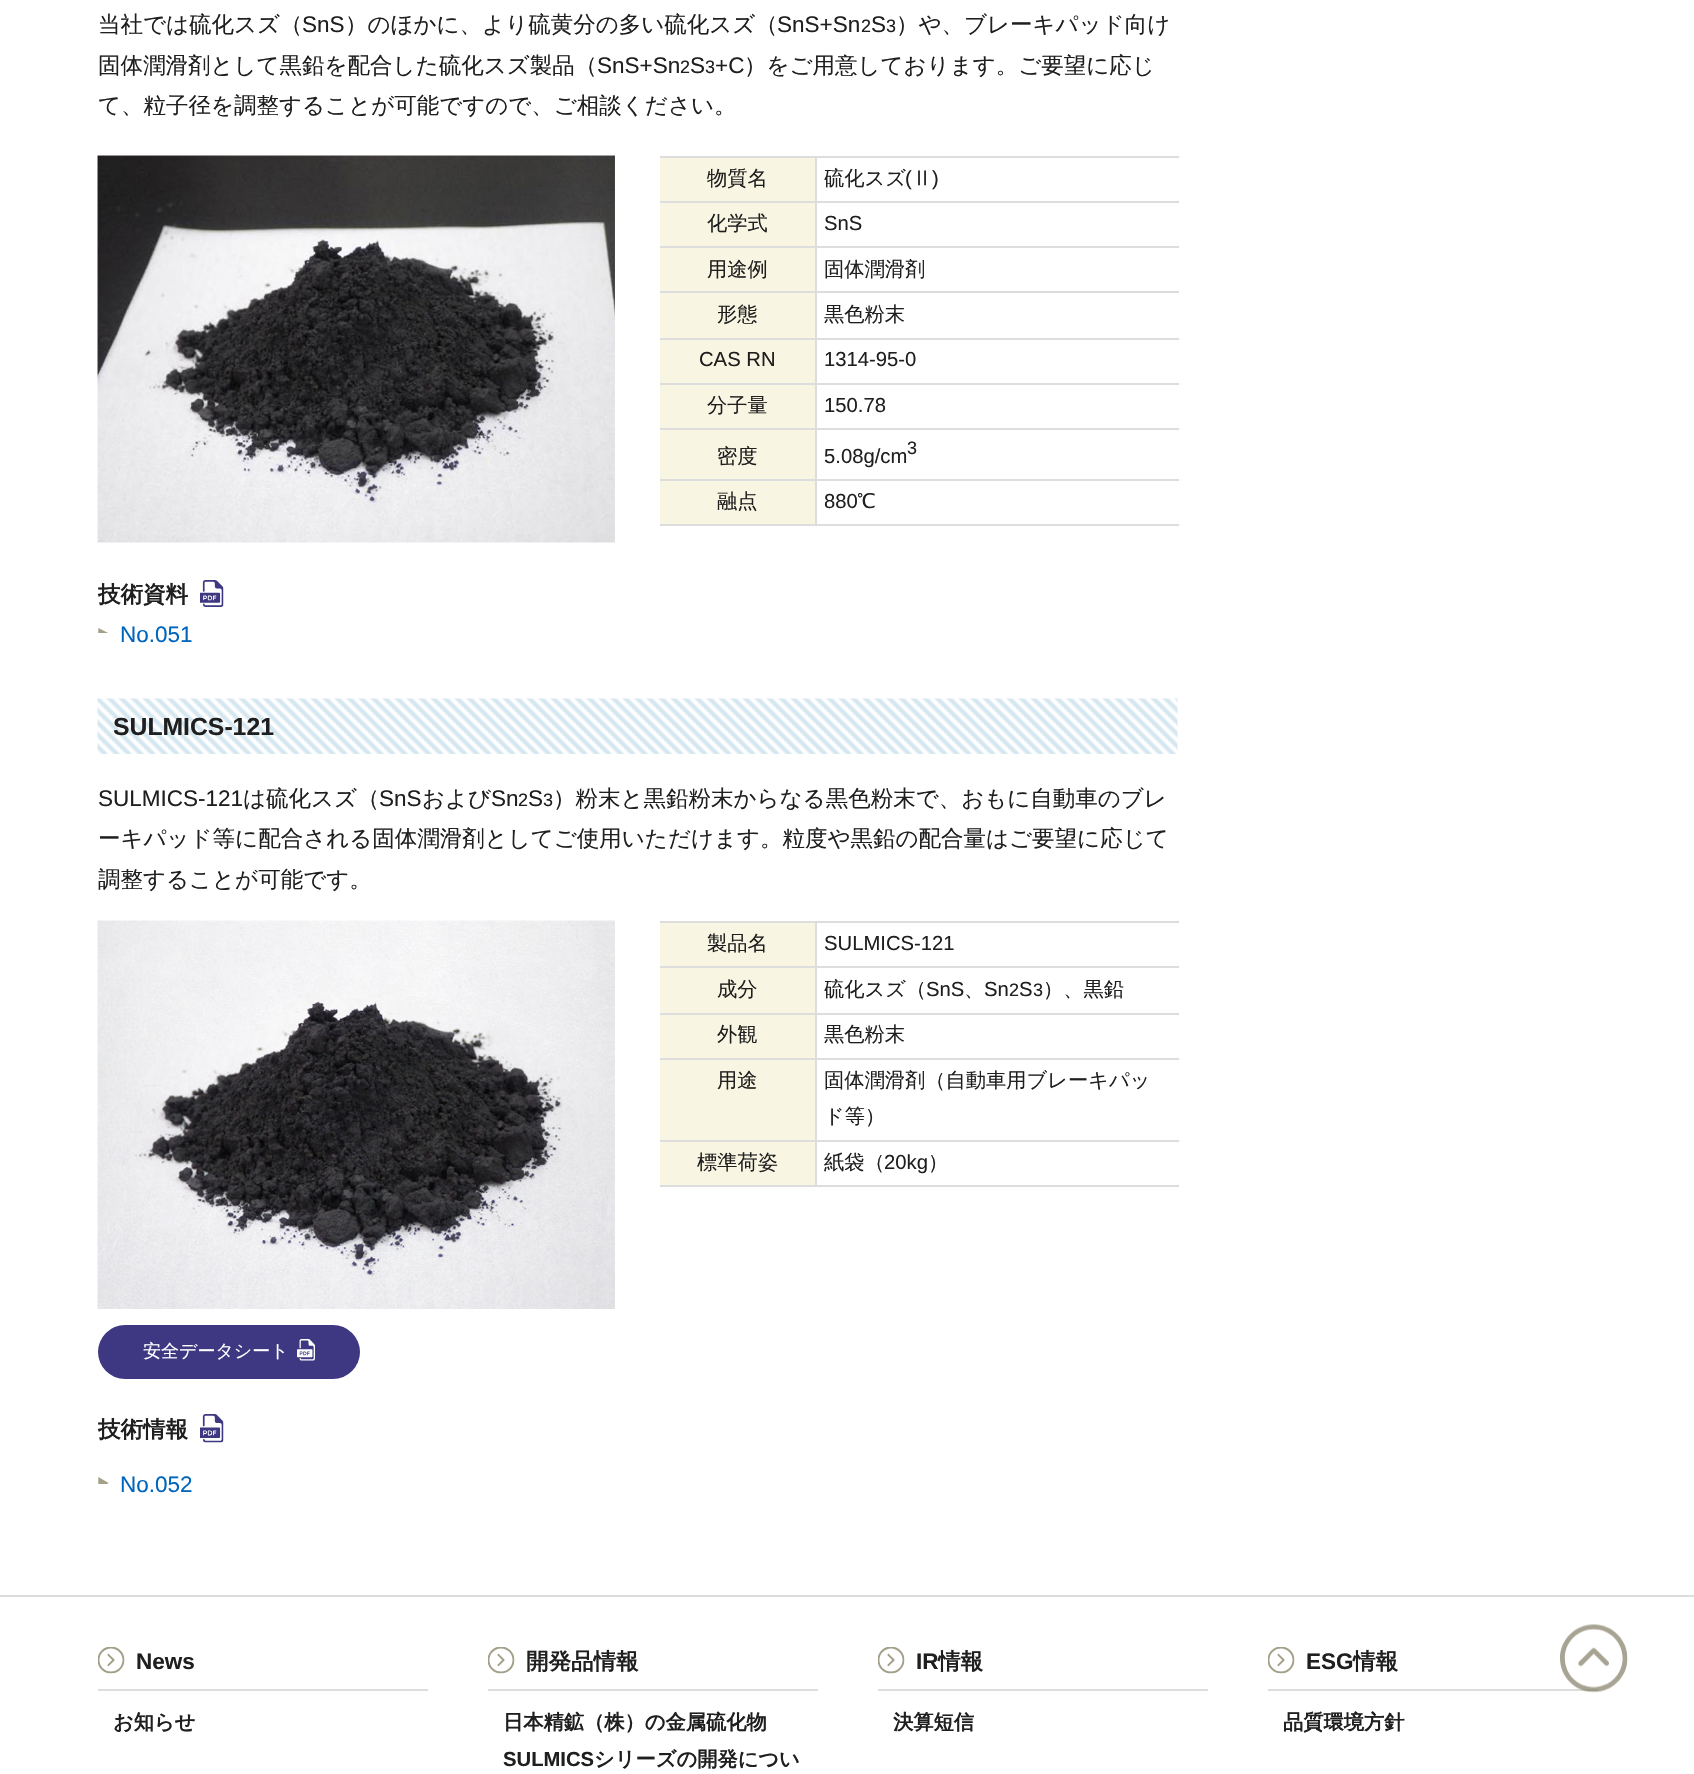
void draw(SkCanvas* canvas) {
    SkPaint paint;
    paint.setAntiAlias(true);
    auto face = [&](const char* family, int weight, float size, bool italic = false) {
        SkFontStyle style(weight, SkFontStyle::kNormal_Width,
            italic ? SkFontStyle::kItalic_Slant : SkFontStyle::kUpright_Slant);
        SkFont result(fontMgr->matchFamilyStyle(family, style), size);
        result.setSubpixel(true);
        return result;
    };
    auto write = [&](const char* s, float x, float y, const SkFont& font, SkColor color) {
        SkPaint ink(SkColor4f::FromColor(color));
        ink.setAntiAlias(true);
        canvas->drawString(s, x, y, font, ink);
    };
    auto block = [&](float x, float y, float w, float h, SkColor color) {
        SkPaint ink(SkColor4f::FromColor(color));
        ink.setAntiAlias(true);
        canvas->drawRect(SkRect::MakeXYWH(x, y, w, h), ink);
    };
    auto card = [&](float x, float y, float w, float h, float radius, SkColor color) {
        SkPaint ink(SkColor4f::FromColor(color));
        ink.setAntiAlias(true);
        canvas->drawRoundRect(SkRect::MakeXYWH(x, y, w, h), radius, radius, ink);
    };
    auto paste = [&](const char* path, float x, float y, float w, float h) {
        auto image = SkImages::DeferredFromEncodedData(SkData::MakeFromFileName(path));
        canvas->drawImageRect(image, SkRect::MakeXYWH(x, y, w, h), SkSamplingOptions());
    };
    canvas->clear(SK_ColorWHITE);
    auto kFont1 = face("WenQuanYi Zen Hei", 500, 22.5f);
    write("当社では硫化スズ（", 98, 32, kFont1, SkColorSetRGB(31, 31, 31));
    auto kFont2 = face("Liberation Sans", 400, 22.5f);
    write("SnS", 302, 32, kFont2, SkColorSetRGB(31, 31, 31));
    write("）のほかに、より硫黄分の多い硫化スズ（", 345, 32, kFont1, SkColorSetRGB(31, 31, 31));
    write("SnS+Sn", 777, 32, kFont2, SkColorSetRGB(31, 31, 31));
    auto kFont3 = face("Liberation Sans", 400, 18);
    write("2", 861, 32, kFont3, SkColorSetRGB(31, 31, 31));
    write("S", 871, 32, kFont2, SkColorSetRGB(31, 31, 31));
    write("3", 886, 32, kFont3, SkColorSetRGB(31, 31, 31));
    write("）や、ブレーキパッド向け", 896, 32, kFont1, SkColorSetRGB(31, 31, 31));
    write("固体潤滑剤として黒鉛を配合した硫化スズ製品（", 98, 73, kFont1, SkColorSetRGB(31, 31, 31));
    write("SnS+Sn", 597, 73, kFont2, SkColorSetRGB(31, 31, 31));
    write("2", 680, 73, kFont3, SkColorSetRGB(31, 31, 31));
    write("S", 690, 73, kFont2, SkColorSetRGB(31, 31, 31));
    write("3", 705, 73, kFont3, SkColorSetRGB(31, 31, 31));
    write("+C", 715, 73, kFont2, SkColorSetRGB(31, 31, 31));
    write("）をご用意しております。ご要望に応じ", 744, 73, kFont1, SkColorSetRGB(31, 31, 31));
    write("て、粒子径を調整することが可能ですので、ご相談ください。", 98, 113, kFont1, SkColorSetRGB(31, 31, 31));
    paste("pic1.png", 97, 155, 518, 388);
    block(660, 158, 155, 43, SkColorSetRGB(248, 245, 226));
    block(815, 156, 364, 2, SkColorSetRGB(221, 221, 221));
    block(815, 201, 364, 2, SkColorSetRGB(221, 221, 221));
    block(815, 246, 364, 2, SkColorSetRGB(221, 221, 221));
    block(815, 291, 364, 2, SkColorSetRGB(221, 221, 221));
    block(815, 338, 364, 2, SkColorSetRGB(221, 221, 221));
    block(815, 383, 364, 2, SkColorSetRGB(221, 221, 221));
    block(815, 428, 364, 2, SkColorSetRGB(221, 221, 221));
    block(815, 479, 364, 2, SkColorSetRGB(221, 221, 221));
    block(815, 524, 364, 2, SkColorSetRGB(221, 221, 221));
    block(815, 479, 2, 46, SkColorSetRGB(221, 221, 221));
    block(660, 479, 156, 2, SkColorSetRGB(221, 221, 221));
    block(815, 428, 2, 52, SkColorSetRGB(221, 221, 221));
    block(660, 428, 156, 2, SkColorSetRGB(221, 221, 221));
    block(815, 383, 2, 46, SkColorSetRGB(221, 221, 221));
    block(660, 383, 156, 2, SkColorSetRGB(221, 221, 221));
    block(815, 338, 2, 46, SkColorSetRGB(221, 221, 221));
    block(660, 338, 156, 2, SkColorSetRGB(221, 221, 221));
    block(815, 291, 2, 48, SkColorSetRGB(221, 221, 221));
    block(660, 291, 156, 2, SkColorSetRGB(221, 221, 221));
    block(815, 246, 2, 47, SkColorSetRGB(221, 221, 221));
    block(660, 246, 156, 2, SkColorSetRGB(221, 221, 221));
    block(815, 201, 2, 47, SkColorSetRGB(221, 221, 221));
    block(660, 201, 156, 2, SkColorSetRGB(221, 221, 221));
    block(815, 156, 2, 47, SkColorSetRGB(221, 221, 221));
    block(660, 156, 156, 2, SkColorSetRGB(221, 221, 221));
    auto kFont4 = face("WenQuanYi Zen Hei", 500, 20.25f);
    write("物質名", 707, 185, kFont4, SkColorSetRGB(31, 31, 31));
    write("硫化スズ", 824, 185, kFont4, SkColorSetRGB(31, 31, 31));
    auto kFont5 = face("Liberation Sans", 400, 20.25f);
    write("(", 905, 185, kFont5, SkColorSetRGB(31, 31, 31));
    write("Ⅱ", 912, 185, kFont4, SkColorSetRGB(31, 31, 31));
    write(")", 932, 185, kFont5, SkColorSetRGB(31, 31, 31));
    block(660, 203, 155, 43, SkColorSetRGB(248, 245, 226));
    write("化学式", 707, 230, kFont4, SkColorSetRGB(31, 31, 31));
    write("SnS", 824, 230, kFont5, SkColorSetRGB(31, 31, 31));
    block(660, 248, 155, 43, SkColorSetRGB(248, 245, 226));
    write("用途例", 707, 276, kFont4, SkColorSetRGB(31, 31, 31));
    write("固体潤滑剤", 824, 276, kFont4, SkColorSetRGB(31, 31, 31));
    block(660, 293, 155, 45, SkColorSetRGB(248, 245, 226));
    write("形態", 717, 321, kFont4, SkColorSetRGB(31, 31, 31));
    write("黒色粉末", 824, 321, kFont4, SkColorSetRGB(31, 31, 31));
    block(660, 340, 155, 43, SkColorSetRGB(248, 245, 226));
    write("CAS RN", 699, 366, kFont5, SkColorSetRGB(31, 31, 31));
    write("1314-95-0", 824, 366, kFont5, SkColorSetRGB(31, 31, 31));
    block(660, 385, 155, 43, SkColorSetRGB(248, 245, 226));
    write("分子量", 707, 412, kFont4, SkColorSetRGB(31, 31, 31));
    write("150.78", 824, 412, kFont5, SkColorSetRGB(31, 31, 31));
    block(660, 430, 155, 49, SkColorSetRGB(248, 245, 226));
    write("密度", 717, 463, kFont4, SkColorSetRGB(31, 31, 31));
    write("5.08g/cm", 824, 463, kFont5, SkColorSetRGB(31, 31, 31));
    write("3", 907, 454, kFont3, SkColorSetRGB(31, 31, 31));
    block(660, 481, 155, 43, SkColorSetRGB(248, 245, 226));
    block(660, 524, 156, 2, SkColorSetRGB(221, 221, 221));
    write("融点", 717, 508, kFont4, SkColorSetRGB(31, 31, 31));
    write("880", 824, 508, kFont5, SkColorSetRGB(31, 31, 31));
    write("℃", 857, 508, kFont4, SkColorSetRGB(31, 31, 31));
    auto kFont6 = face("WenQuanYi Zen Hei", 700, 22.5f);
    write("技術資料", 98, 602, kFont6, SkColorSetRGB(31, 31, 31));
    paste("pic2.png", 200, 580, 24, 27);
    paste("pic3.png", 98, 628, 10, 5);
    write("No.051", 120, 642, kFont2, SkColorSetRGB(0, 102, 189));
    paste("pic4.png", 97, 698, 1081, 56);
    auto kFont7 = face("Liberation Sans", 700, 24.75f);
    write("SULMICS-121", 113, 735, kFont7, SkColorSetRGB(31, 31, 31));
    write("SULMICS-121", 98, 806, kFont2, SkColorSetRGB(31, 31, 31));
    write("は硫化スズ（", 243, 806, kFont1, SkColorSetRGB(31, 31, 31));
    write("SnS", 379, 806, kFont2, SkColorSetRGB(31, 31, 31));
    write("および", 422, 806, kFont1, SkColorSetRGB(31, 31, 31));
    write("Sn", 491, 806, kFont2, SkColorSetRGB(31, 31, 31));
    write("2", 518, 806, kFont3, SkColorSetRGB(31, 31, 31));
    write("S", 528, 806, kFont2, SkColorSetRGB(31, 31, 31));
    write("3", 543, 806, kFont3, SkColorSetRGB(31, 31, 31));
    write("）粉末と黒鉛粉末からなる黒色粉末で、おもに自動車のブレ", 553, 806, kFont1, SkColorSetRGB(31, 31, 31));
    write("ーキパッド等に配合される固体潤滑剤としてご使用いただけます。粒度や黒鉛の配合量はご要望に応じて", 98, 846, kFont1, SkColorSetRGB(31, 31, 31));
    write("調整することが可能です。", 98, 887, kFont1, SkColorSetRGB(31, 31, 31));
    paste("pic5.png", 97, 920, 518, 389);
    block(660, 923, 155, 43, SkColorSetRGB(248, 245, 226));
    block(815, 921, 364, 2, SkColorSetRGB(221, 221, 221));
    block(815, 966, 364, 2, SkColorSetRGB(221, 221, 221));
    block(815, 1013, 364, 2, SkColorSetRGB(221, 221, 221));
    block(815, 1058, 364, 2, SkColorSetRGB(221, 221, 221));
    block(815, 1140, 364, 2, SkColorSetRGB(221, 221, 221));
    block(815, 1185, 364, 2, SkColorSetRGB(221, 221, 221));
    block(815, 1140, 2, 47, SkColorSetRGB(221, 221, 221));
    block(660, 1140, 156, 2, SkColorSetRGB(221, 221, 221));
    block(815, 1058, 2, 84, SkColorSetRGB(221, 221, 221));
    block(660, 1058, 156, 2, SkColorSetRGB(221, 221, 221));
    block(815, 1013, 2, 46, SkColorSetRGB(221, 221, 221));
    block(660, 1013, 156, 2, SkColorSetRGB(221, 221, 221));
    block(815, 966, 2, 48, SkColorSetRGB(221, 221, 221));
    block(660, 966, 156, 2, SkColorSetRGB(221, 221, 221));
    block(815, 921, 2, 47, SkColorSetRGB(221, 221, 221));
    block(660, 921, 156, 2, SkColorSetRGB(221, 221, 221));
    write("製品名", 707, 950, kFont4, SkColorSetRGB(31, 31, 31));
    write("SULMICS-121", 824, 950, kFont5, SkColorSetRGB(31, 31, 31));
    block(660, 968, 155, 45, SkColorSetRGB(248, 245, 226));
    write("成分", 717, 996, kFont4, SkColorSetRGB(31, 31, 31));
    write("硫化スズ（", 824, 996, kFont4, SkColorSetRGB(31, 31, 31));
    write("SnS", 926, 996, kFont5, SkColorSetRGB(31, 31, 31));
    write("、", 964, 996, kFont4, SkColorSetRGB(31, 31, 31));
    write("Sn", 984, 996, kFont5, SkColorSetRGB(31, 31, 31));
    write("2", 1009, 996, kFont3, SkColorSetRGB(31, 31, 31));
    write("S", 1019, 996, kFont5, SkColorSetRGB(31, 31, 31));
    write("3", 1033, 996, kFont3, SkColorSetRGB(31, 31, 31));
    write("）、黒鉛", 1043, 996, kFont4, SkColorSetRGB(31, 31, 31));
    block(660, 1015, 155, 43, SkColorSetRGB(248, 245, 226));
    write("外観", 717, 1041, kFont4, SkColorSetRGB(31, 31, 31));
    write("黒色粉末", 824, 1041, kFont4, SkColorSetRGB(31, 31, 31));
    block(660, 1060, 155, 80, SkColorSetRGB(248, 245, 226));
    write("用途", 717, 1087, kFont4, SkColorSetRGB(31, 31, 31));
    write("固体潤滑剤（自動車用ブレーキパッ", 824, 1087, kFont4, SkColorSetRGB(31, 31, 31));
    write("ド等）", 824, 1123, kFont4, SkColorSetRGB(31, 31, 31));
    block(660, 1142, 155, 43, SkColorSetRGB(248, 245, 226));
    block(660, 1185, 156, 2, SkColorSetRGB(221, 221, 221));
    write("標準荷姿", 697, 1169, kFont4, SkColorSetRGB(31, 31, 31));
    write("紙袋（", 824, 1169, kFont4, SkColorSetRGB(31, 31, 31));
    write("20kg", 884, 1169, kFont5, SkColorSetRGB(31, 31, 31));
    write("）", 928, 1169, kFont4, SkColorSetRGB(31, 31, 31));
    card(98, 1325, 262, 54, 27, SkColorSetRGB(62, 55, 129));
    auto kFont8 = face("WenQuanYi Zen Hei", 500, 18);
    write("安全データシート", 143, 1357, kFont8, SK_ColorWHITE);
    paste("pic6.png", 297, 1339, 18, 22);
    write("技術情報", 98, 1437, kFont6, SkColorSetRGB(31, 31, 31));
    paste("pic7.png", 200, 1414, 24, 29);
    paste("pic8.png", 98, 1477, 11, 7);
    write("No.052", 120, 1492, kFont2, SkColorSetRGB(0, 102, 189));
    block(0, 1595, 1694, 2, SkColorSetRGB(221, 221, 221));
    block(98, 1689, 330, 2, SkColorSetRGB(221, 221, 221));
    paste("pic9.png", 98, 1647, 27, 27);
    auto kFont9 = face("Liberation Sans", 700, 22.5f);
    write("News", 136, 1669, kFont9, SkColorSetRGB(31, 31, 31));
    auto kFont10 = face("WenQuanYi Zen Hei", 700, 20.25f);
    write("お知らせ", 113, 1729, kFont10, SkColorSetRGB(31, 31, 31));
    block(488, 1689, 330, 2, SkColorSetRGB(221, 221, 221));
    paste("pic10.png", 488, 1647, 27, 27);
    write("開発品情報", 526, 1669, kFont6, SkColorSetRGB(31, 31, 31));
    write("日本精鉱（株）の金属硫化物", 503, 1729, kFont10, SkColorSetRGB(31, 31, 31));
    auto kFont11 = face("Liberation Sans", 700, 20.25f);
    write("SULMICS", 503, 1766, kFont11, SkColorSetRGB(31, 31, 31));
    write("シリーズの開発につい", 594, 1766, kFont10, SkColorSetRGB(31, 31, 31));
    block(878, 1689, 330, 2, SkColorSetRGB(221, 221, 221));
    paste("pic9.png", 878, 1647, 27, 27);
    write("IR", 916, 1669, kFont9, SkColorSetRGB(31, 31, 31));
    write("情報", 938, 1669, kFont6, SkColorSetRGB(31, 31, 31));
    write("決算短信", 893, 1729, kFont10, SkColorSetRGB(31, 31, 31));
    block(1268, 1689, 330, 2, SkColorSetRGB(221, 221, 221));
    paste("pic11.png", 1268, 1647, 27, 27);
    write("ESG", 1306, 1669, kFont9, SkColorSetRGB(31, 31, 31));
    write("情報", 1353, 1669, kFont6, SkColorSetRGB(31, 31, 31));
    write("品質環境方針", 1283, 1729, kFont10, SkColorSetRGB(31, 31, 31));
    paste("pic12.png", 1560, 1624, 68, 69);
}
